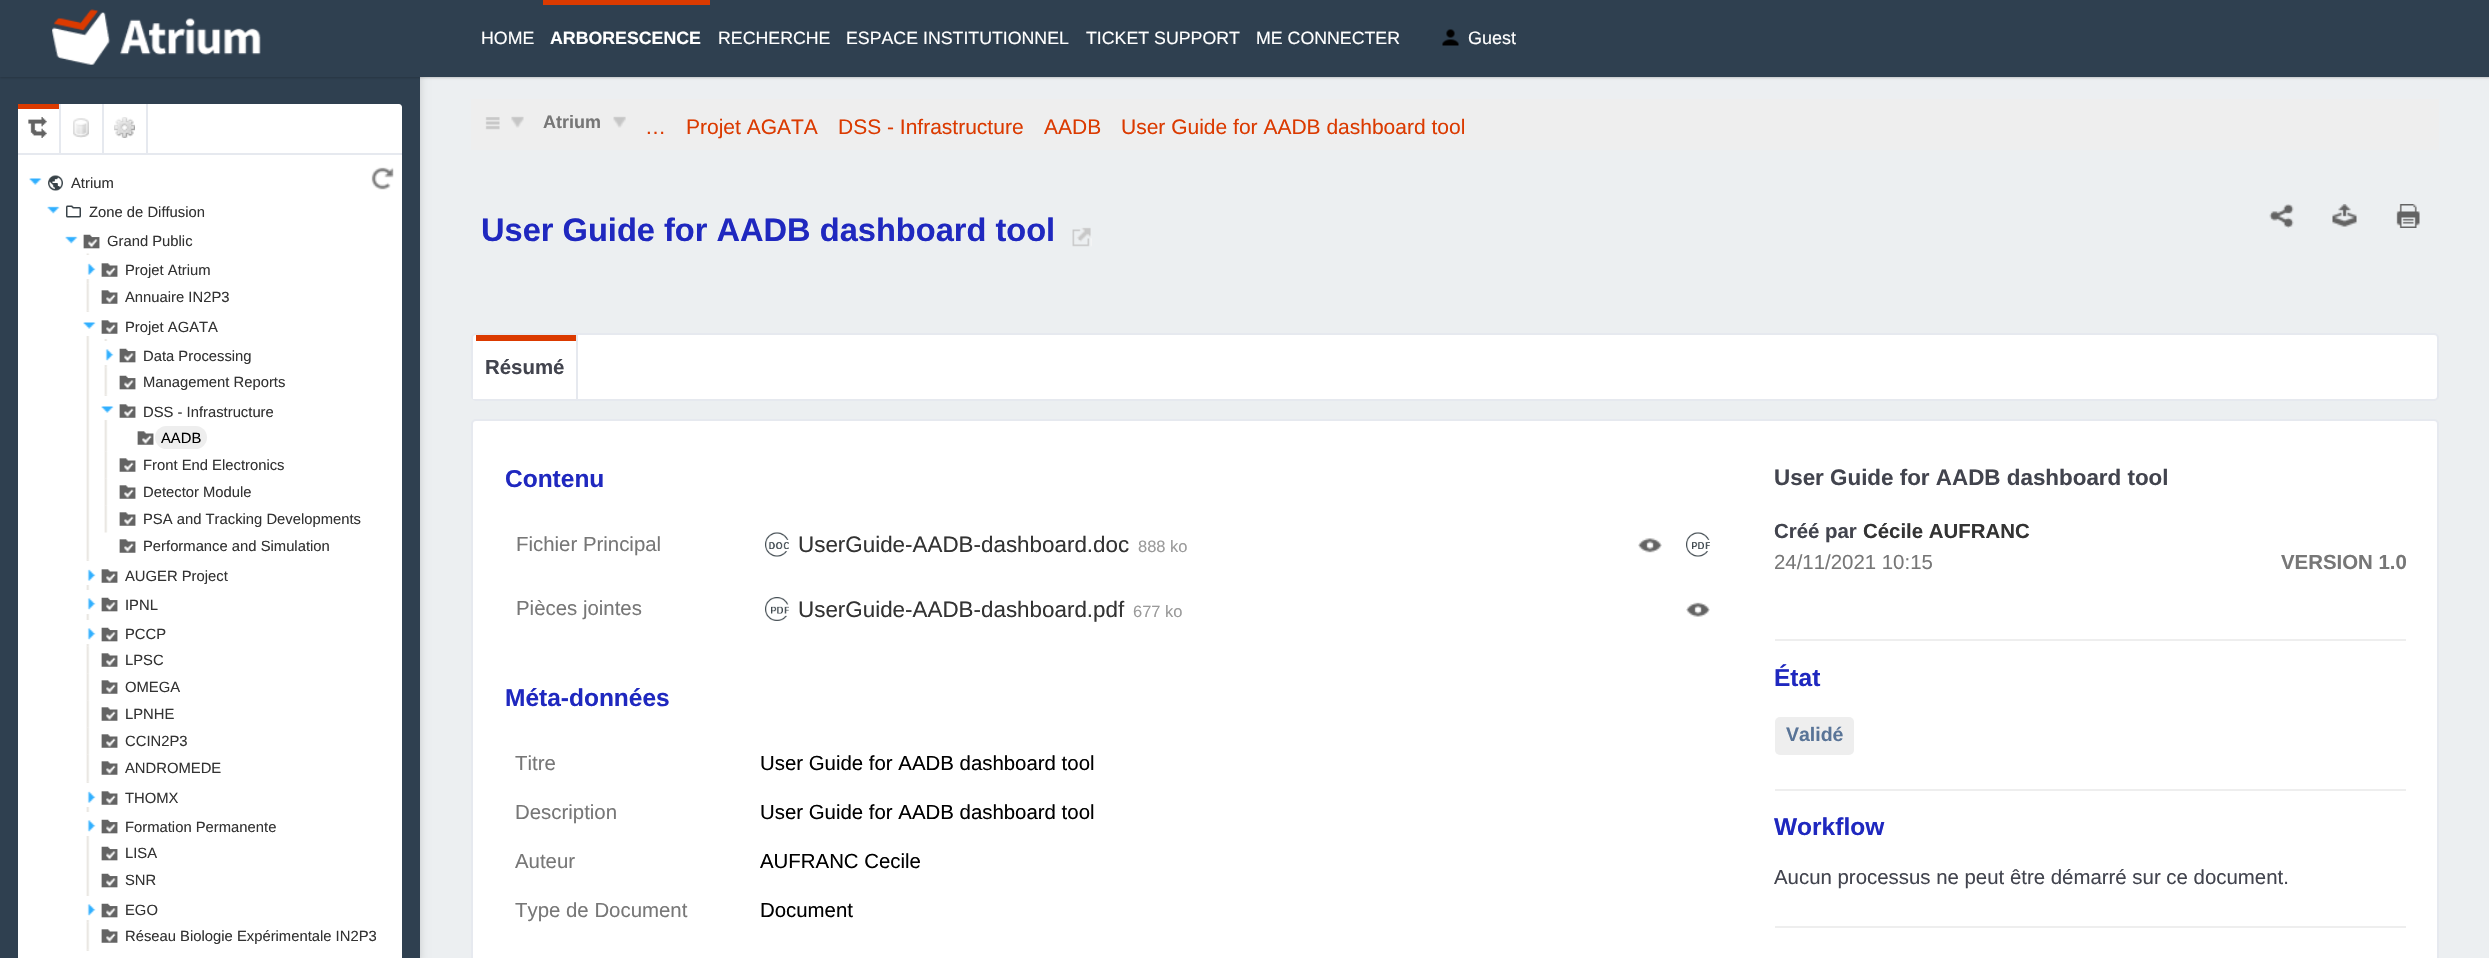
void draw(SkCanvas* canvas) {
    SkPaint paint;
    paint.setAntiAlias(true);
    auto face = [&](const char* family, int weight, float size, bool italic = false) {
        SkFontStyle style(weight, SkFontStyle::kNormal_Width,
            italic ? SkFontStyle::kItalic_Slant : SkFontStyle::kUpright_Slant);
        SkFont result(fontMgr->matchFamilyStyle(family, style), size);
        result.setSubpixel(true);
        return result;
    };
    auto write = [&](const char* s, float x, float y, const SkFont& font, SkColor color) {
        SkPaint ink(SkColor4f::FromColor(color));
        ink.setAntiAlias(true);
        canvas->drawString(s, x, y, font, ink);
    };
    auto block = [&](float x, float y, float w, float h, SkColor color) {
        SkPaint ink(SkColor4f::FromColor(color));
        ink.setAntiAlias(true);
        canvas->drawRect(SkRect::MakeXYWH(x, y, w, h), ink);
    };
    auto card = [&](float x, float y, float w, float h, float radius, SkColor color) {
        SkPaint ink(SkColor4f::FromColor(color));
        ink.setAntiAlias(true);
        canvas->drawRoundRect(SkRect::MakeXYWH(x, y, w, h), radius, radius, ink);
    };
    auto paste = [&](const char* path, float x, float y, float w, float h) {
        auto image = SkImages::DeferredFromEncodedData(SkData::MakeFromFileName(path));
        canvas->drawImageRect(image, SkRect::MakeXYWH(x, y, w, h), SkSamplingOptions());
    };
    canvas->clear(SkColorSetRGB(236, 239, 241));
    paint.setColor(SkColorSetARGB(41, 0, 0, 0));
    paint.setMaskFilter(SkMaskFilter::MakeBlur(kNormal_SkBlurStyle, 4));
    canvas->drawRect(SkRect::MakeXYWH(0, 3, 420, 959), paint);
    paint.setMaskFilter(nullptr);
    block(0, 77, 420, 881, SkColorSetRGB(47, 64, 80));
    paint.setColor(SkColorSetARGB(46, 0, 0, 0));
    paint.setMaskFilter(SkMaskFilter::MakeBlur(kNormal_SkBlurStyle, 1));
    canvas->drawRect(SkRect::MakeXYWH(0, 2, 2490, 76), paint);
    paint.setMaskFilter(nullptr);
    block(0, 0, 2489, 77, SkColorSetRGB(47, 64, 80));
    paste("pic1.png", 52, 9, 209, 56);
    auto kFont1 = face("Liberation Sans", 400, 17.75f);
    write("HOME", 481, 44, kFont1, SK_ColorWHITE);
    block(543, 0, 167, 5, SkColorSetRGB(219, 58, 0));
    auto kFont2 = face("Liberation Sans", 700, 17.75f);
    write("ARBORESCENCE", 550, 44, kFont2, SK_ColorWHITE);
    write("RECHERCHE", 718, 44, kFont1, SK_ColorWHITE);
    write("ESPACE INSTITUTIONNEL", 846, 44, kFont1, SK_ColorWHITE);
    write("TICKET SUPPORT", 1086, 44, kFont1, SK_ColorWHITE);
    write("ME CONNECTER", 1256, 44, kFont1, SK_ColorWHITE);
    paste("pic2.png", 1442, 29, 17, 17);
    auto kFont3 = face("Liberation Sans", 400, 18);
    write("Guest", 1468, 44, kFont3, SK_ColorWHITE);
    paint.setColor(SK_ColorWHITE);
    canvas->drawPath(SkPathBuilder().moveTo(21, 104).lineTo(399, 104).cubicTo(400.5f, 104, 402, 105.5f, 402, 107).lineTo(402, 155).lineTo(18, 155).lineTo(18, 107).cubicTo(18, 105.5f, 19.5f, 104, 21, 104).close().detach(), paint);
    block(18, 153, 384, 2, SkColorSetRGB(230, 233, 239));
    block(59, 104, 2, 49, SkColorSetRGB(230, 233, 239));
    block(18, 104, 41, 5, SkColorSetRGB(219, 58, 0));
    paste("pic3.png", 28, 117, 19, 21);
    block(102, 104, 2, 49, SkColorSetRGB(230, 233, 239));
    paste("pic4.png", 73, 118, 16, 20);
    block(146, 104, 2, 49, SkColorSetRGB(230, 233, 239));
    paste("pic5.png", 114, 117, 21, 21);
    block(18, 155, 384, 803, SK_ColorWHITE);
    paste("pic6.png", 29, 178, 13, 7);
    paste("pic7.png", 48, 175, 15, 16);
    auto kFont4 = face("Liberation Sans", 400, 14.8f);
    write("Atrium", 71, 188, kFont4, SkColorSetRGB(51, 51, 51));
    paste("pic8.png", 47, 206, 13, 8);
    paste("pic9.png", 66, 205, 15, 13);
    write("Zone de Diffusion", 89, 217, kFont4, SkColorSetRGB(51, 51, 51));
    paste("pic8.png", 65, 236, 13, 8);
    paste("pic10.png", 83, 234, 17, 15);
    write("Grand Public", 107, 246, kFont4, SkColorSetRGB(51, 51, 51));
    paste("pic11.png", 86, 253, 4, 31);
    block(86, 255, 4, 24, SK_ColorWHITE);
    paste("pic12.png", 87, 263, 9, 12);
    paste("pic13.png", 101, 263, 17, 14);
    write("Projet Atrium", 125, 275, kFont4, SkColorSetRGB(51, 51, 51));
    paste("pic14.png", 86, 283, 4, 28);
    paste("pic13.png", 101, 290, 17, 14);
    write("Annuaire IN2P3", 125, 302, kFont4, SkColorSetRGB(51, 51, 51));
    paste("pic15.png", 86, 310, 4, 250);
    block(86, 312, 4, 24, SK_ColorWHITE);
    paste("pic6.png", 83, 322, 13, 7);
    paste("pic13.png", 101, 320, 17, 14);
    write("Projet AGATA", 125, 332, kFont4, SkColorSetRGB(51, 51, 51));
    paste("pic16.png", 104, 339, 4, 29);
    block(104, 341, 4, 24, SK_ColorWHITE);
    paste("pic17.png", 105, 349, 9, 12);
    paste("pic18.png", 119, 348, 17, 15);
    write("Data Processing", 143, 361, kFont4, SkColorSetRGB(51, 51, 51));
    paste("pic14.png", 104, 367, 4, 28);
    paste("pic18.png", 119, 375, 17, 15);
    write("Management Reports", 143, 387, kFont4, SkColorSetRGB(51, 51, 51));
    paste("pic19.png", 104, 394, 4, 58);
    block(104, 396, 4, 24, SK_ColorWHITE);
    paste("pic6.png", 101, 406, 13, 7);
    paste("pic13.png", 119, 404, 17, 14);
    write("DSS - Infrastructure", 143, 417, kFont4, SkColorSetRGB(51, 51, 51));
    paste("pic13.png", 137, 431, 17, 14);
    card(155, 426, 52, 23, 11.5f, SkColorSetRGB(238, 238, 238));
    write("AADB", 161, 443, kFont4, SK_ColorBLACK);
    paste("pic14.png", 104, 451, 4, 28);
    paste("pic13.png", 119, 458, 17, 14);
    write("Front End Electronics", 143, 470, kFont4, SkColorSetRGB(51, 51, 51));
    paste("pic14.png", 104, 478, 4, 28);
    paste("pic13.png", 119, 485, 17, 14);
    write("Detector Module", 143, 497, kFont4, SkColorSetRGB(51, 51, 51));
    paste("pic14.png", 104, 505, 4, 28);
    paste("pic13.png", 119, 512, 17, 14);
    write("PSA and Tracking Developments", 143, 524, kFont4, SkColorSetRGB(51, 51, 51));
    paste("pic13.png", 119, 539, 17, 14);
    write("Performance and Simulation", 143, 551, kFont4, SkColorSetRGB(51, 51, 51));
    paste("pic20.png", 86, 559, 4, 29);
    block(86, 561, 4, 24, SK_ColorWHITE);
    paste("pic12.png", 87, 569, 9, 12);
    paste("pic13.png", 101, 569, 17, 14);
    write("AUGER Project", 125, 581, kFont4, SkColorSetRGB(51, 51, 51));
    paste("pic21.png", 86, 588, 4, 30);
    block(86, 590, 4, 24, SK_ColorWHITE);
    paste("pic17.png", 87, 598, 9, 12);
    paste("pic18.png", 101, 597, 17, 15);
    write("IPNL", 125, 610, kFont4, SkColorSetRGB(51, 51, 51));
    paste("pic16.png", 86, 618, 4, 29);
    block(86, 620, 4, 24, SK_ColorWHITE);
    paste("pic17.png", 87, 628, 9, 12);
    paste("pic18.png", 101, 627, 17, 15);
    write("PCCP", 125, 639, kFont4, SkColorSetRGB(51, 51, 51));
    paste("pic14.png", 86, 646, 4, 28);
    paste("pic22.png", 101, 653, 17, 14);
    write("LPSC", 125, 665, kFont4, SkColorSetRGB(51, 51, 51));
    paste("pic14.png", 86, 673, 4, 28);
    paste("pic13.png", 101, 680, 17, 14);
    write("OMEGA", 125, 692, kFont4, SkColorSetRGB(51, 51, 51));
    paste("pic14.png", 86, 700, 4, 28);
    paste("pic13.png", 101, 707, 17, 14);
    write("LPNHE", 125, 719, kFont4, SkColorSetRGB(51, 51, 51));
    paste("pic14.png", 86, 727, 4, 28);
    paste("pic13.png", 101, 734, 17, 14);
    write("CCIN2P3", 125, 746, kFont4, SkColorSetRGB(51, 51, 51));
    paste("pic14.png", 86, 754, 4, 28);
    paste("pic22.png", 101, 761, 17, 14);
    write("ANDROMEDE", 125, 773, kFont4, SkColorSetRGB(51, 51, 51));
    paste("pic20.png", 86, 781, 4, 29);
    block(86, 783, 4, 24, SK_ColorWHITE);
    paste("pic12.png", 87, 791, 9, 12);
    paste("pic13.png", 101, 791, 17, 14);
    write("THOMX", 125, 803, kFont4, SkColorSetRGB(51, 51, 51));
    paste("pic21.png", 86, 810, 4, 30);
    block(86, 812, 4, 24, SK_ColorWHITE);
    paste("pic17.png", 87, 820, 9, 12);
    paste("pic18.png", 101, 819, 17, 15);
    write("Formation Permanente", 125, 832, kFont4, SkColorSetRGB(51, 51, 51));
    paste("pic23.png", 86, 840, 4, 27);
    paste("pic18.png", 101, 846, 17, 15);
    write("LISA", 125, 858, kFont4, SkColorSetRGB(51, 51, 51));
    paste("pic23.png", 86, 867, 4, 27);
    paste("pic18.png", 101, 873, 17, 15);
    write("SNR", 125, 885, kFont4, SkColorSetRGB(51, 51, 51));
    paste("pic16.png", 86, 894, 4, 29);
    block(86, 896, 4, 24, SK_ColorWHITE);
    paste("pic17.png", 87, 904, 9, 12);
    paste("pic18.png", 101, 903, 17, 15);
    write("EGO", 125, 915, kFont4, SkColorSetRGB(51, 51, 51));
    paste("pic14.png", 86, 922, 4, 28);
    paste("pic13.png", 101, 929, 17, 14);
    write("Réseau Biologie Expérimentale IN2P3", 125, 941, kFont4, SkColorSetRGB(51, 51, 51));
    paste("pic24.png", 86, 949, 4, 2);
    paste("pic25.png", 371, 167, 23, 23);
    block(471, 99, 1968, 51, SkColorSetRGB(238, 238, 238));
    paste("pic26.png", 485, 117, 15, 13);
    paste("pic27.png", 511, 116, 13, 12);
    auto kFont5 = face("Liberation Sans", 700, 18);
    write("Atrium", 543, 128, kFont5, SkColorSetRGB(119, 119, 119));
    paste("pic28.png", 613, 116, 13, 12);
    auto kFont6 = face("Liberation Sans", 400, 21);
    write("…", 645, 134, kFont6, SkColorSetRGB(219, 58, 0));
    write("Projet AGATA", 686, 134, kFont6, SkColorSetRGB(219, 58, 0));
    write("DSS - Infrastructure", 838, 134, kFont6, SkColorSetRGB(219, 58, 0));
    write("AADB", 1044, 134, kFont6, SkColorSetRGB(219, 58, 0));
    write("User Guide for AADB dashboard tool", 1121, 134, kFont6, SkColorSetRGB(219, 58, 0));
    auto kFont7 = face("Liberation Sans", 700, 32.6f);
    write("User Guide for AADB dashboard tool", 481, 241, kFont7, SkColorSetRGB(31, 40, 191));
    paste("pic29.png", 1072, 227, 20, 20);
    paste("pic30.png", 2269, 204, 25, 24);
    paste("pic31.png", 2332, 204, 25, 23);
    paste("pic32.png", 2396, 204, 24, 24);
    canvas->drawRoundRect(SkRect::MakeXYWH(472, 334, 1966, 66), 4, 4, paint);
    paint.setStyle(SkPaint::kStroke_Style);
    paint.setStrokeWidth(2);
    paint.setColor(SkColorSetRGB(230, 233, 239));
    canvas->drawRoundRect(SkRect::MakeXYWH(472, 334, 1966, 66), 4, 4, paint);
    block(576, 335, 2, 64, SkColorSetRGB(230, 233, 239));
    paint.setStyle(SkPaint::kFill_Style);
    paint.setColor(SK_ColorWHITE);
    canvas->drawPath(SkPathBuilder().moveTo(478, 335).lineTo(576, 335).lineTo(576, 399).lineTo(473, 399).lineTo(473, 340).cubicTo(473, 337, 475, 335, 478, 335).close().detach(), paint);
    block(476, 335, 100, 6, SkColorSetRGB(219, 58, 0));
    auto kFont8 = face("Liberation Sans", 700, 20.4f);
    write("Résumé", 485, 374, kFont8, SkColorSetRGB(66, 68, 78));
    canvas->drawRoundRect(SkRect::MakeXYWH(472, 420, 1966, 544), 4, 4, paint);
    paint.setStyle(SkPaint::kStroke_Style);
    paint.setColor(SkColorSetRGB(230, 233, 239));
    canvas->drawRoundRect(SkRect::MakeXYWH(472, 420, 1966, 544), 4, 4, paint);
    auto kFont9 = face("Liberation Sans", 700, 24.5f);
    write("Contenu", 505, 487, kFont9, SkColorSetRGB(31, 40, 191));
    auto kFont10 = face("Liberation Sans", 400, 20.4f);
    write("Fichier Principal", 516, 551, kFont10, SkColorSetRGB(119, 119, 119));
    paste("pic33.png", 765, 532, 24, 25);
    auto kFont11 = face("Liberation Sans", 400, 22.4f);
    write("UserGuide-AADB-dashboard.doc", 798, 552, kFont11, SkColorSetRGB(51, 51, 51));
    auto kFont12 = face("Liberation Sans", 400, 16.5f);
    write("888 ko", 1138, 552, kFont12, SkColorSetRGB(154, 154, 154));
    paste("pic34.png", 1638, 538, 24, 15);
    paste("pic35.png", 1686, 532, 24, 25);
    write("Pièces jointes", 516, 615, kFont10, SkColorSetRGB(119, 119, 119));
    paste("pic36.png", 765, 597, 24, 24);
    write("UserGuide-AADB-dashboard.pdf", 798, 617, kFont11, SkColorSetRGB(51, 51, 51));
    write("677 ko", 1133, 617, kFont12, SkColorSetRGB(154, 154, 154));
    paste("pic37.png", 1686, 602, 24, 15);
    write("Méta-données", 505, 706, kFont9, SkColorSetRGB(31, 40, 191));
    write("Titre", 515, 770, kFont10, SkColorSetRGB(119, 119, 119));
    write("User Guide for AADB dashboard tool", 760, 770, kFont10, SK_ColorBLACK);
    write("Description", 515, 819, kFont10, SkColorSetRGB(119, 119, 119));
    write("User Guide for AADB dashboard tool", 760, 819, kFont10, SK_ColorBLACK);
    write("Auteur", 515, 868, kFont10, SkColorSetRGB(119, 119, 119));
    write("AUFRANC Cecile", 760, 868, kFont10, SK_ColorBLACK);
    write("Type de Document", 515, 917, kFont10, SkColorSetRGB(119, 119, 119));
    write("Document", 760, 917, kFont10, SK_ColorBLACK);
    auto kFont13 = face("Liberation Sans", 700, 22.4f);
    write("User Guide for AADB dashboard tool", 1774, 485, kFont13, SkColorSetRGB(66, 68, 78));
    write("Créé par", 1774, 538, kFont8, SkColorSetRGB(66, 68, 78));
    write("Cécile AUFRANC", 1863, 538, kFont8, SkColorSetRGB(51, 51, 51));
    write("24/11/2021 10:15", 1774, 569, kFont10, SkColorSetRGB(119, 119, 119));
    write("VERSION 1.0", 2281, 569, kFont8, SkColorSetRGB(119, 119, 119));
    block(1775, 639, 631, 2, SkColorSetRGB(238, 238, 238));
    write("État", 1774, 686, kFont9, SkColorSetRGB(31, 40, 191));
    card(1775, 717, 79, 38, 5, SkColorSetRGB(238, 238, 238));
    auto kFont14 = face("Liberation Sans", 700, 19.5f);
    write("Validé", 1786, 741, kFont14, SkColorSetRGB(89, 116, 151));
    block(1775, 789, 631, 2, SkColorSetRGB(238, 238, 238));
    write("Workflow", 1774, 835, kFont9, SkColorSetRGB(31, 40, 191));
    write("Aucun processus ne peut être démarré sur ce document.", 1774, 884, kFont10, SkColorSetRGB(66, 68, 78));
    block(1775, 926, 631, 2, SkColorSetRGB(238, 238, 238));
}
